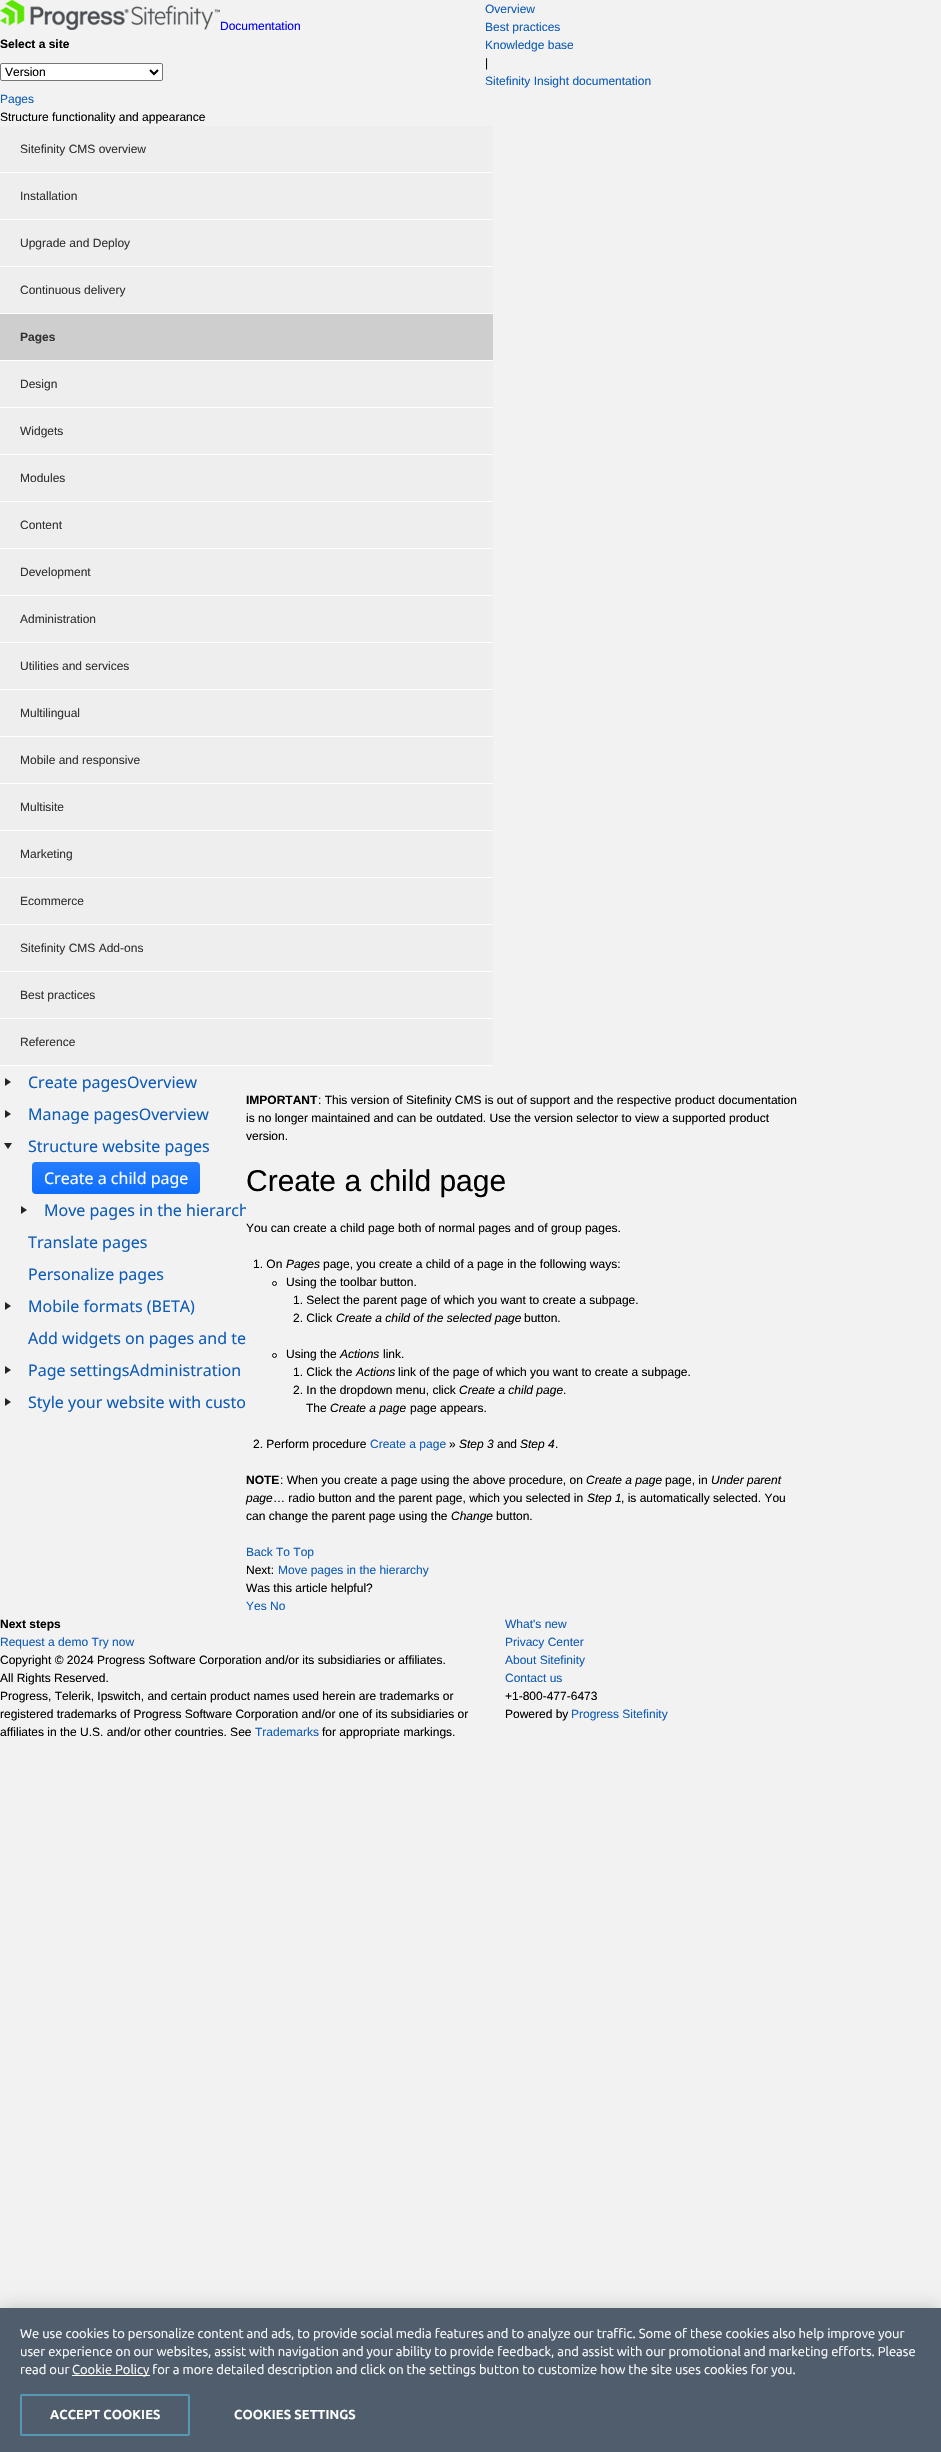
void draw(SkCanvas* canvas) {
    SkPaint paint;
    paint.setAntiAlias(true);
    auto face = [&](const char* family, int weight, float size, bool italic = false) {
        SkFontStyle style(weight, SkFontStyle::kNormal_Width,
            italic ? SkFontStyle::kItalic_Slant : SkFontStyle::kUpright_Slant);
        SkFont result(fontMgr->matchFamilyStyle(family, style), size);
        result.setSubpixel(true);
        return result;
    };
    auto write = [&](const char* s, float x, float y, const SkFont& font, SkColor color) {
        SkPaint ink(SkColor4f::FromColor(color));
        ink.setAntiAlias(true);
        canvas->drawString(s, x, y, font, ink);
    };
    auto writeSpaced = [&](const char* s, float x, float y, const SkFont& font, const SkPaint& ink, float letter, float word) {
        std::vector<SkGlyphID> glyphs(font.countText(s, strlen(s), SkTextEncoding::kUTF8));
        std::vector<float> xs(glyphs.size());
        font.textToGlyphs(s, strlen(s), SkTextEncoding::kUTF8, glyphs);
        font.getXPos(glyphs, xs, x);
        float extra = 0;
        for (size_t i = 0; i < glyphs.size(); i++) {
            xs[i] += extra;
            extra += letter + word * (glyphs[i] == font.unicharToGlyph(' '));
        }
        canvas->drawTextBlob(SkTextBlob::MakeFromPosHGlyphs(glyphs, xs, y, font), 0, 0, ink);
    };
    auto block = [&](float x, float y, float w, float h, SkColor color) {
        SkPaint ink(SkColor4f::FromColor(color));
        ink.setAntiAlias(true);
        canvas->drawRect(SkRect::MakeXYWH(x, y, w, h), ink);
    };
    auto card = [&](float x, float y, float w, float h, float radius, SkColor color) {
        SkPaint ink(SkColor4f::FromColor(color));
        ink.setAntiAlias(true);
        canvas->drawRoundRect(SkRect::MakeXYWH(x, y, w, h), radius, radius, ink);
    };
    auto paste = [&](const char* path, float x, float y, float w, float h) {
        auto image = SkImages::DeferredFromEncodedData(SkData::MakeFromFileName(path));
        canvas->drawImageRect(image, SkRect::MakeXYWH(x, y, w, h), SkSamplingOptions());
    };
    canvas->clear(SkColorSetRGB(242, 242, 242));
    paste("pic1.png", 0, 0, 220, 30);
    auto kFont1 = face("Liberation Sans", 400, 12);
    write("Documentation", 220, 30, kFont1, SkColorSetRGB(0, 0, 255));
    auto kFont2 = face("Liberation Sans", 700, 12);
    write("Select a site", 0, 48, kFont2, SK_ColorBLACK);
    paint.setColor(SK_ColorWHITE);
    canvas->drawRoundRect(SkRect::MakeXYWH(0.5f, 63.5f, 162, 17), 1.5f, 1.5f, paint);
    paint.setStyle(SkPaint::kStroke_Style);
    paint.setStrokeWidth(1);
    paint.setColor(SkColorSetRGB(118, 118, 118));
    canvas->drawRoundRect(SkRect::MakeXYWH(0.5f, 63.5f, 162, 17), 1.5f, 1.5f, paint);
    paint.setStrokeWidth(2);
    paint.setColor(SK_ColorBLACK);
    canvas->drawPath(SkPathBuilder().moveTo(150, 70).lineTo(154, 74).lineTo(158, 70).detach(), paint);
    write("Version", 5, 76, kFont1, SK_ColorBLACK);
    write("Overview", 485, 13, kFont1, SkColorSetRGB(16, 92, 182));
    write("Best practices", 485, 31, kFont1, SkColorSetRGB(16, 92, 182));
    write("Knowledge base", 485, 49, kFont1, SkColorSetRGB(16, 92, 182));
    write("|", 485, 67, kFont1, SK_ColorBLACK);
    write("Sitefinity Insight documentation", 485, 85, kFont1, SkColorSetRGB(16, 92, 182));
    write("Pages", 0, 103, kFont1, SkColorSetRGB(16, 92, 182));
    write("Structure functionality and appearance", 0, 121, kFont1, SK_ColorBLACK);
    block(0, 126, 493, 46, SkColorSetRGB(238, 238, 238));
    block(0, 172, 493, 1, SK_ColorWHITE);
    write("Sitefinity CMS overview", 20, 153, kFont1, SkColorSetRGB(51, 51, 51));
    block(0, 173, 493, 46, SkColorSetRGB(238, 238, 238));
    block(0, 219, 493, 1, SK_ColorWHITE);
    write("Installation", 20, 200, kFont1, SkColorSetRGB(51, 51, 51));
    block(0, 220, 493, 46, SkColorSetRGB(238, 238, 238));
    block(0, 266, 493, 1, SK_ColorWHITE);
    write("Upgrade and Deploy", 20, 247, kFont1, SkColorSetRGB(51, 51, 51));
    block(0, 267, 493, 46, SkColorSetRGB(238, 238, 238));
    block(0, 313, 493, 1, SK_ColorWHITE);
    write("Continuous delivery", 20, 294, kFont1, SkColorSetRGB(51, 51, 51));
    block(0, 360, 493, 1, SK_ColorWHITE);
    block(0, 314, 493, 46, SkColorSetRGB(206, 206, 206));
    write("Pages", 20, 341, kFont2, SkColorSetRGB(51, 51, 51));
    block(0, 361, 493, 46, SkColorSetRGB(238, 238, 238));
    block(0, 407, 493, 1, SK_ColorWHITE);
    write("Design", 20, 388, kFont1, SkColorSetRGB(51, 51, 51));
    block(0, 408, 493, 46, SkColorSetRGB(238, 238, 238));
    block(0, 454, 493, 1, SK_ColorWHITE);
    write("Widgets", 20, 435, kFont1, SkColorSetRGB(51, 51, 51));
    block(0, 455, 493, 46, SkColorSetRGB(238, 238, 238));
    block(0, 501, 493, 1, SK_ColorWHITE);
    write("Modules", 20, 482, kFont1, SkColorSetRGB(51, 51, 51));
    block(0, 502, 493, 46, SkColorSetRGB(238, 238, 238));
    block(0, 548, 493, 1, SK_ColorWHITE);
    write("Content", 20, 529, kFont1, SkColorSetRGB(51, 51, 51));
    block(0, 549, 493, 46, SkColorSetRGB(238, 238, 238));
    block(0, 595, 493, 1, SK_ColorWHITE);
    write("Development", 20, 576, kFont1, SkColorSetRGB(51, 51, 51));
    block(0, 596, 493, 46, SkColorSetRGB(238, 238, 238));
    block(0, 642, 493, 1, SK_ColorWHITE);
    write("Administration", 20, 623, kFont1, SkColorSetRGB(51, 51, 51));
    block(0, 643, 493, 46, SkColorSetRGB(238, 238, 238));
    block(0, 689, 493, 1, SK_ColorWHITE);
    write("Utilities and services", 20, 670, kFont1, SkColorSetRGB(51, 51, 51));
    block(0, 690, 493, 46, SkColorSetRGB(238, 238, 238));
    block(0, 736, 493, 1, SK_ColorWHITE);
    write("Multilingual", 20, 717, kFont1, SkColorSetRGB(51, 51, 51));
    block(0, 737, 493, 46, SkColorSetRGB(238, 238, 238));
    block(0, 783, 493, 1, SK_ColorWHITE);
    write("Mobile and responsive", 20, 764, kFont1, SkColorSetRGB(51, 51, 51));
    block(0, 784, 493, 46, SkColorSetRGB(238, 238, 238));
    block(0, 830, 493, 1, SK_ColorWHITE);
    write("Multisite", 20, 811, kFont1, SkColorSetRGB(51, 51, 51));
    block(0, 831, 493, 46, SkColorSetRGB(238, 238, 238));
    block(0, 877, 493, 1, SK_ColorWHITE);
    write("Marketing", 20, 858, kFont1, SkColorSetRGB(51, 51, 51));
    block(0, 878, 493, 46, SkColorSetRGB(238, 238, 238));
    block(0, 924, 493, 1, SK_ColorWHITE);
    write("Ecommerce", 20, 905, kFont1, SkColorSetRGB(51, 51, 51));
    block(0, 925, 493, 46, SkColorSetRGB(238, 238, 238));
    block(0, 971, 493, 1, SK_ColorWHITE);
    write("Sitefinity CMS Add-ons", 20, 952, kFont1, SkColorSetRGB(51, 51, 51));
    block(0, 972, 493, 46, SkColorSetRGB(238, 238, 238));
    block(0, 1018, 493, 1, SK_ColorWHITE);
    write("Best practices", 20, 999, kFont1, SkColorSetRGB(51, 51, 51));
    block(0, 1019, 493, 46, SkColorSetRGB(238, 238, 238));
    block(0, 1065, 493, 1, SK_ColorWHITE);
    write("Reference", 20, 1046, kFont1, SkColorSetRGB(51, 51, 51));
    paint.setStyle(SkPaint::kFill_Style);
    paint.setColor(SkColorSetRGB(33, 37, 41));
    canvas->drawPath(SkPathBuilder().moveTo(11, 1082).lineTo(5, 1086).lineTo(5, 1078).close().detach(), paint);
    auto kFont3 = face("Noto Sans", 400, 16);
    write("Create pagesOverview", 28, 1088, kFont3, SkColorSetRGB(16, 92, 182));
    canvas->drawPath(SkPathBuilder().moveTo(11, 1114).lineTo(5, 1118).lineTo(5, 1110).close().detach(), paint);
    write("Manage pagesOverview", 28, 1120, kFont3, SkColorSetRGB(16, 92, 182));
    canvas->drawPath(SkPathBuilder().moveTo(8, 1149).lineTo(4, 1143).lineTo(12, 1143).close().detach(), paint);
    write("Structure website pages", 28, 1152, kFont3, SkColorSetRGB(16, 92, 182));
    card(32, 1162, 168, 32, 4, SkColorSetRGB(13, 110, 253));
    {
        const SkColor colors[] = {SkColorSetARGB(26, 255, 255, 255), SkColorSetARGB(0, 255, 255, 255)};
        const float stops[] = {0, 1};
        const SkPoint ends[] = {{116, 1162}, {116, 1194}};
        paint.setShader(SkGradientShader::MakeLinear(ends, colors, stops, 2, SkTileMode::kClamp));
        paint.setAlpha(255);
    }
    canvas->drawRoundRect(SkRect::MakeXYWH(32, 1162, 168, 32), 4, 4, paint);
    write("Create a child page", 44, 1184, kFont3, SK_ColorWHITE);
    paint.setShader(nullptr);
    paint.setColor(SkColorSetRGB(33, 37, 41));
    canvas->drawPath(SkPathBuilder().moveTo(27, 1210).lineTo(21, 1214).lineTo(21, 1206).close().detach(), paint);
    canvas->save();
    canvas->clipRect(SkRect::MakeXYWH(0, 1066, 246, 352));
    write("Move pages in the hierarch", 44, 1216, kFont3, SkColorSetRGB(16, 92, 182));
    canvas->restore();
    write("Translate pages", 28, 1248, kFont3, SkColorSetRGB(16, 92, 182));
    write("Personalize pages", 28, 1280, kFont3, SkColorSetRGB(16, 92, 182));
    canvas->drawPath(SkPathBuilder().moveTo(11, 1306).lineTo(5, 1310).lineTo(5, 1302).close().detach(), paint);
    write("Mobile formats (BETA)", 28, 1312, kFont3, SkColorSetRGB(16, 92, 182));
    write("Add widgets on pages and te", 28, 1344, kFont3, SkColorSetRGB(16, 92, 182));
    canvas->drawPath(SkPathBuilder().moveTo(11, 1370).lineTo(5, 1374).lineTo(5, 1366).close().detach(), paint);
    write("Page settingsAdministration", 28, 1376, kFont3, SkColorSetRGB(16, 92, 182));
    canvas->drawPath(SkPathBuilder().moveTo(11, 1402).lineTo(5, 1406).lineTo(5, 1398).close().detach(), paint);
    write("Style your website with custo", 28, 1408, kFont3, SkColorSetRGB(16, 92, 182));
    write("IMPORTANT", 246, 1104, kFont2, SK_ColorBLACK);
    write(": This version of Sitefinity CMS is out of support and the respective product documentation", 318, 1104, kFont1, SK_ColorBLACK);
    write("is no longer maintained and can be outdated. Use the version selector to view a supported product", 246, 1122, kFont1, SK_ColorBLACK);
    write("version.", 246, 1140, kFont1, SK_ColorBLACK);
    auto kFont4 = face("Liberation Sans", 400, 30);
    write("Create a child page", 246, 1191, kFont4, SK_ColorBLACK);
    write("You can create a child page both of normal pages and of group pages.", 246, 1232, kFont1, SK_ColorBLACK);
    write("1. On", 253, 1268, kFont1, SK_ColorBLACK);
    auto kFont5 = face("Liberation Sans", 400, 12, true);
    write("Pages", 286, 1268, kFont5, SK_ColorBLACK);
    write("page, you create a child of a page in the following ways:", 323, 1268, kFont1, SK_ColorBLACK);
    paint.setStyle(SkPaint::kStroke_Style);
    paint.setStrokeWidth(1);
    paint.setColor(SK_ColorBLACK);
    canvas->drawCircle(274.5f, 1283.5f, 2, paint);
    write("Using the toolbar button.", 286, 1286, kFont1, SK_ColorBLACK);
    write("1. Select the parent page of which you want to create a subpage.", 293, 1304, kFont1, SK_ColorBLACK);
    write("2. Click", 293, 1322, kFont1, SK_ColorBLACK);
    write("Create a child of the selected page", 336, 1322, kFont5, SK_ColorBLACK);
    write("button.", 524, 1322, kFont1, SK_ColorBLACK);
    canvas->drawCircle(274.5f, 1355.5f, 2, paint);
    write("Using the", 286, 1358, kFont1, SK_ColorBLACK);
    write("Actions", 340, 1358, kFont5, SK_ColorBLACK);
    write("link.", 383, 1358, kFont1, SK_ColorBLACK);
    write("1. Click the", 293, 1376, kFont1, SK_ColorBLACK);
    write("Actions", 356, 1376, kFont5, SK_ColorBLACK);
    write("link of the page of which you want to create a subpage.", 398, 1376, kFont1, SK_ColorBLACK);
    write("2. In the dropdown menu, click", 293, 1394, kFont1, SK_ColorBLACK);
    write("Create a child page", 459, 1394, kFont5, SK_ColorBLACK);
    write(".", 563, 1394, kFont1, SK_ColorBLACK);
    write("The", 306, 1412, kFont1, SK_ColorBLACK);
    write("Create a page", 330, 1412, kFont5, SK_ColorBLACK);
    write("page appears.", 410, 1412, kFont1, SK_ColorBLACK);
    write("2. Perform procedure", 253, 1448, kFont1, SK_ColorBLACK);
    write("Create a page", 370, 1448, kFont1, SkColorSetRGB(16, 92, 182));
    write("»", 449, 1448, kFont1, SK_ColorBLACK);
    write("Step 3", 459, 1448, kFont5, SK_ColorBLACK);
    write("and", 497, 1448, kFont1, SK_ColorBLACK);
    write("Step 4", 520, 1448, kFont5, SK_ColorBLACK);
    write(".", 555, 1448, kFont1, SK_ColorBLACK);
    write("NOTE", 246, 1484, kFont2, SK_ColorBLACK);
    write(": When you create a page using the above procedure, on", 280, 1484, kFont1, SK_ColorBLACK);
    write("Create a page", 586, 1484, kFont5, SK_ColorBLACK);
    write("page, in", 665, 1484, kFont1, SK_ColorBLACK);
    write("Under parent", 711, 1484, kFont5, SK_ColorBLACK);
    write("page", 246, 1502, kFont5, SK_ColorBLACK);
    write("… radio button and the parent page, which you selected in", 273, 1502, kFont1, SK_ColorBLACK);
    write("Step 1", 587, 1502, kFont5, SK_ColorBLACK);
    write(", is automatically selected. You", 621, 1502, kFont1, SK_ColorBLACK);
    write("can change the parent page using the", 246, 1520, kFont1, SK_ColorBLACK);
    write("Change", 451, 1520, kFont5, SK_ColorBLACK);
    write("button.", 496, 1520, kFont1, SK_ColorBLACK);
    write("Back To Top", 246, 1556, kFont1, SkColorSetRGB(16, 92, 182));
    write("Next:", 246, 1574, kFont1, SK_ColorBLACK);
    write("Move pages in the hierarchy", 278, 1574, kFont1, SkColorSetRGB(16, 92, 182));
    write("Was this article helpful?", 246, 1592, kFont1, SK_ColorBLACK);
    write("Yes No", 246, 1610, kFont1, SkColorSetRGB(16, 92, 182));
    write("Next steps", 0, 1628, kFont2, SK_ColorBLACK);
    write("Request a demo Try now", 0, 1646, kFont1, SkColorSetRGB(16, 92, 182));
    write("Copyright © 2024 Progress Software Corporation and/or its subsidiaries or affiliates.", 0, 1664, kFont1, SK_ColorBLACK);
    write("All Rights Reserved.", 0, 1682, kFont1, SK_ColorBLACK);
    write("Progress, Telerik, Ipswitch, and certain product names used herein are trademarks or", 0, 1700, kFont1, SK_ColorBLACK);
    write("registered trademarks of Progress Software Corporation and/or one of its subsidiaries or", 0, 1718, kFont1, SK_ColorBLACK);
    write("affiliates in the U.S. and/or other countries. See", 0, 1736, kFont1, SK_ColorBLACK);
    write("Trademarks", 255, 1736, kFont1, SkColorSetRGB(16, 92, 182));
    write("for appropriate markings.", 322, 1736, kFont1, SK_ColorBLACK);
    write("What's new", 505, 1628, kFont1, SkColorSetRGB(16, 92, 182));
    write("Privacy Center", 505, 1646, kFont1, SkColorSetRGB(16, 92, 182));
    write("About Sitefinity", 505, 1664, kFont1, SkColorSetRGB(16, 92, 182));
    write("Contact us", 505, 1682, kFont1, SkColorSetRGB(16, 92, 182));
    write("+1-800-477-6473", 505, 1700, kFont1, SK_ColorBLACK);
    write("Powered by", 505, 1718, kFont1, SK_ColorBLACK);
    write("Progress Sitefinity", 571, 1718, kFont1, SkColorSetRGB(16, 92, 182));
    paint.setStyle(SkPaint::kFill_Style);
    paint.setColor(SkColorSetARGB(51, 0, 0, 0));
    paint.setMaskFilter(SkMaskFilter::MakeBlur(kNormal_SkBlurStyle, 9));
    canvas->drawRect(SkRect::MakeXYWH(0, 2308, 941, 144), paint);
    paint.setMaskFilter(nullptr);
    block(0, 2308, 941, 144, SkColorSetRGB(79, 93, 108));
    auto kFont6 = face("Ubuntu", 400, 13);
    write("We use cookies to personalize content and ads, to provide social media features and to analyze our traffic. Some of these cookies also help improve your", 20, 2338, kFont6, SK_ColorWHITE);
    write("user experience on our websites, assist with navigation and your ability to provide feedback, and assist with our promotional and marketing efforts. Please", 20, 2356, kFont6, SK_ColorWHITE);
    write("read our", 20, 2374, kFont6, SK_ColorWHITE);
    block(72, 2375, 78, 1, SK_ColorWHITE);
    write("Cookie Policy for a more detailed description and click on the settings button to customize how the site uses cookies for you.", 72, 2374, kFont6, SK_ColorWHITE);
    paint.setStyle(SkPaint::kStroke_Style);
    paint.setStrokeWidth(2);
    paint.setColor(SkColorSetRGB(86, 153, 182));
    canvas->drawRoundRect(SkRect::MakeXYWH(21, 2395, 168, 40), 1, 1, paint);
    auto kFont7 = face("Ubuntu", 700, 13);
    paint.setStyle(SkPaint::kFill_Style);
    paint.setColor(SK_ColorWHITE);
    writeSpaced("ACCEPT COOKIES", 50, 2419, kFont7, paint, 0.1f, 0);
    writeSpaced("COOKIES SETTINGS", 234, 2419, kFont7, paint, 0.1f, 0);
}
